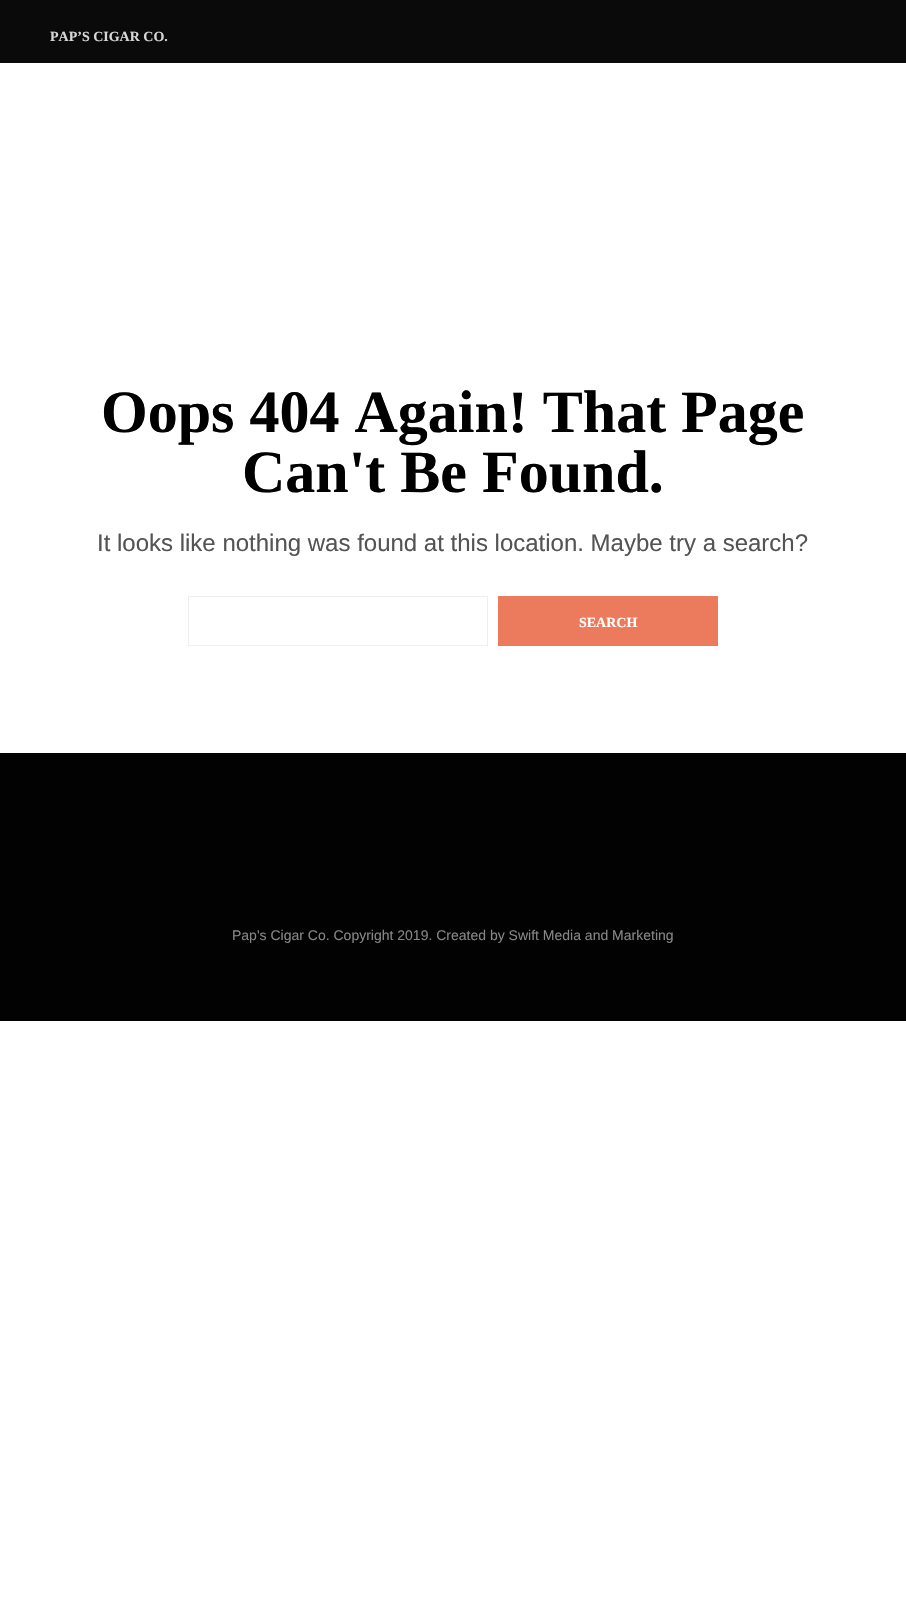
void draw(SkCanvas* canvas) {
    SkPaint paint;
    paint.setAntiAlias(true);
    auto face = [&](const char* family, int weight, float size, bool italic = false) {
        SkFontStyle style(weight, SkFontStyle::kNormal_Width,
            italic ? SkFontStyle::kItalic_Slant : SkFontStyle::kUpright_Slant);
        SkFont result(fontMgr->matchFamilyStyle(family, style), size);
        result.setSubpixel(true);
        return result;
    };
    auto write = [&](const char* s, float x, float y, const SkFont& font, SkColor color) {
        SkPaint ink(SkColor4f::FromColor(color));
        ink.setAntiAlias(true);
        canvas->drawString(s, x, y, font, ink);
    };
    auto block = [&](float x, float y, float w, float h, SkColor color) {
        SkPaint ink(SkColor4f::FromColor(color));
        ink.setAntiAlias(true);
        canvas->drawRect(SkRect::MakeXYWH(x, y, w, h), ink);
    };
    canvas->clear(SK_ColorWHITE);
    block(0, 0, 906, 63, SkColorSetRGB(10, 10, 10));
    auto kFont1 = face("Liberation Serif", 700, 14);
    write("PAP’S CIGAR CO.", 50, 41, kFont1, SkColorSetRGB(214, 214, 214));
    auto kFont2 = face("Liberation Serif", 700, 60);
    write("Oops 404 Again! That Page", 101, 432, kFont2, SK_ColorBLACK);
    write("Can't Be Found.", 242, 492, kFont2, SK_ColorBLACK);
    auto kFont3 = face("Liberation Sans", 400, 24);
    write("It looks like nothing was found at this location. Maybe try a search?", 97, 551, kFont3, SkColorSetRGB(84, 84, 84));
    paint.setStyle(SkPaint::kStroke_Style);
    paint.setStrokeWidth(1);
    paint.setColor(SkColorSetRGB(238, 238, 238));
    canvas->drawRect(SkRect::MakeXYWH(188.5f, 596.5f, 299, 49), paint);
    block(498, 596, 220, 50, SkColorSetRGB(236, 122, 92));
    write("SEARCH", 579, 627, kFont1, SK_ColorWHITE);
    block(0, 753, 906, 268, SkColorSetRGB(2, 2, 2));
    auto kFont4 = face("Liberation Sans", 400, 14);
    write("Pap's Cigar Co. Copyright 2019. Created by Swift Media and Marketing", 232, 940, kFont4, SkColorSetRGB(134, 134, 134));
}
